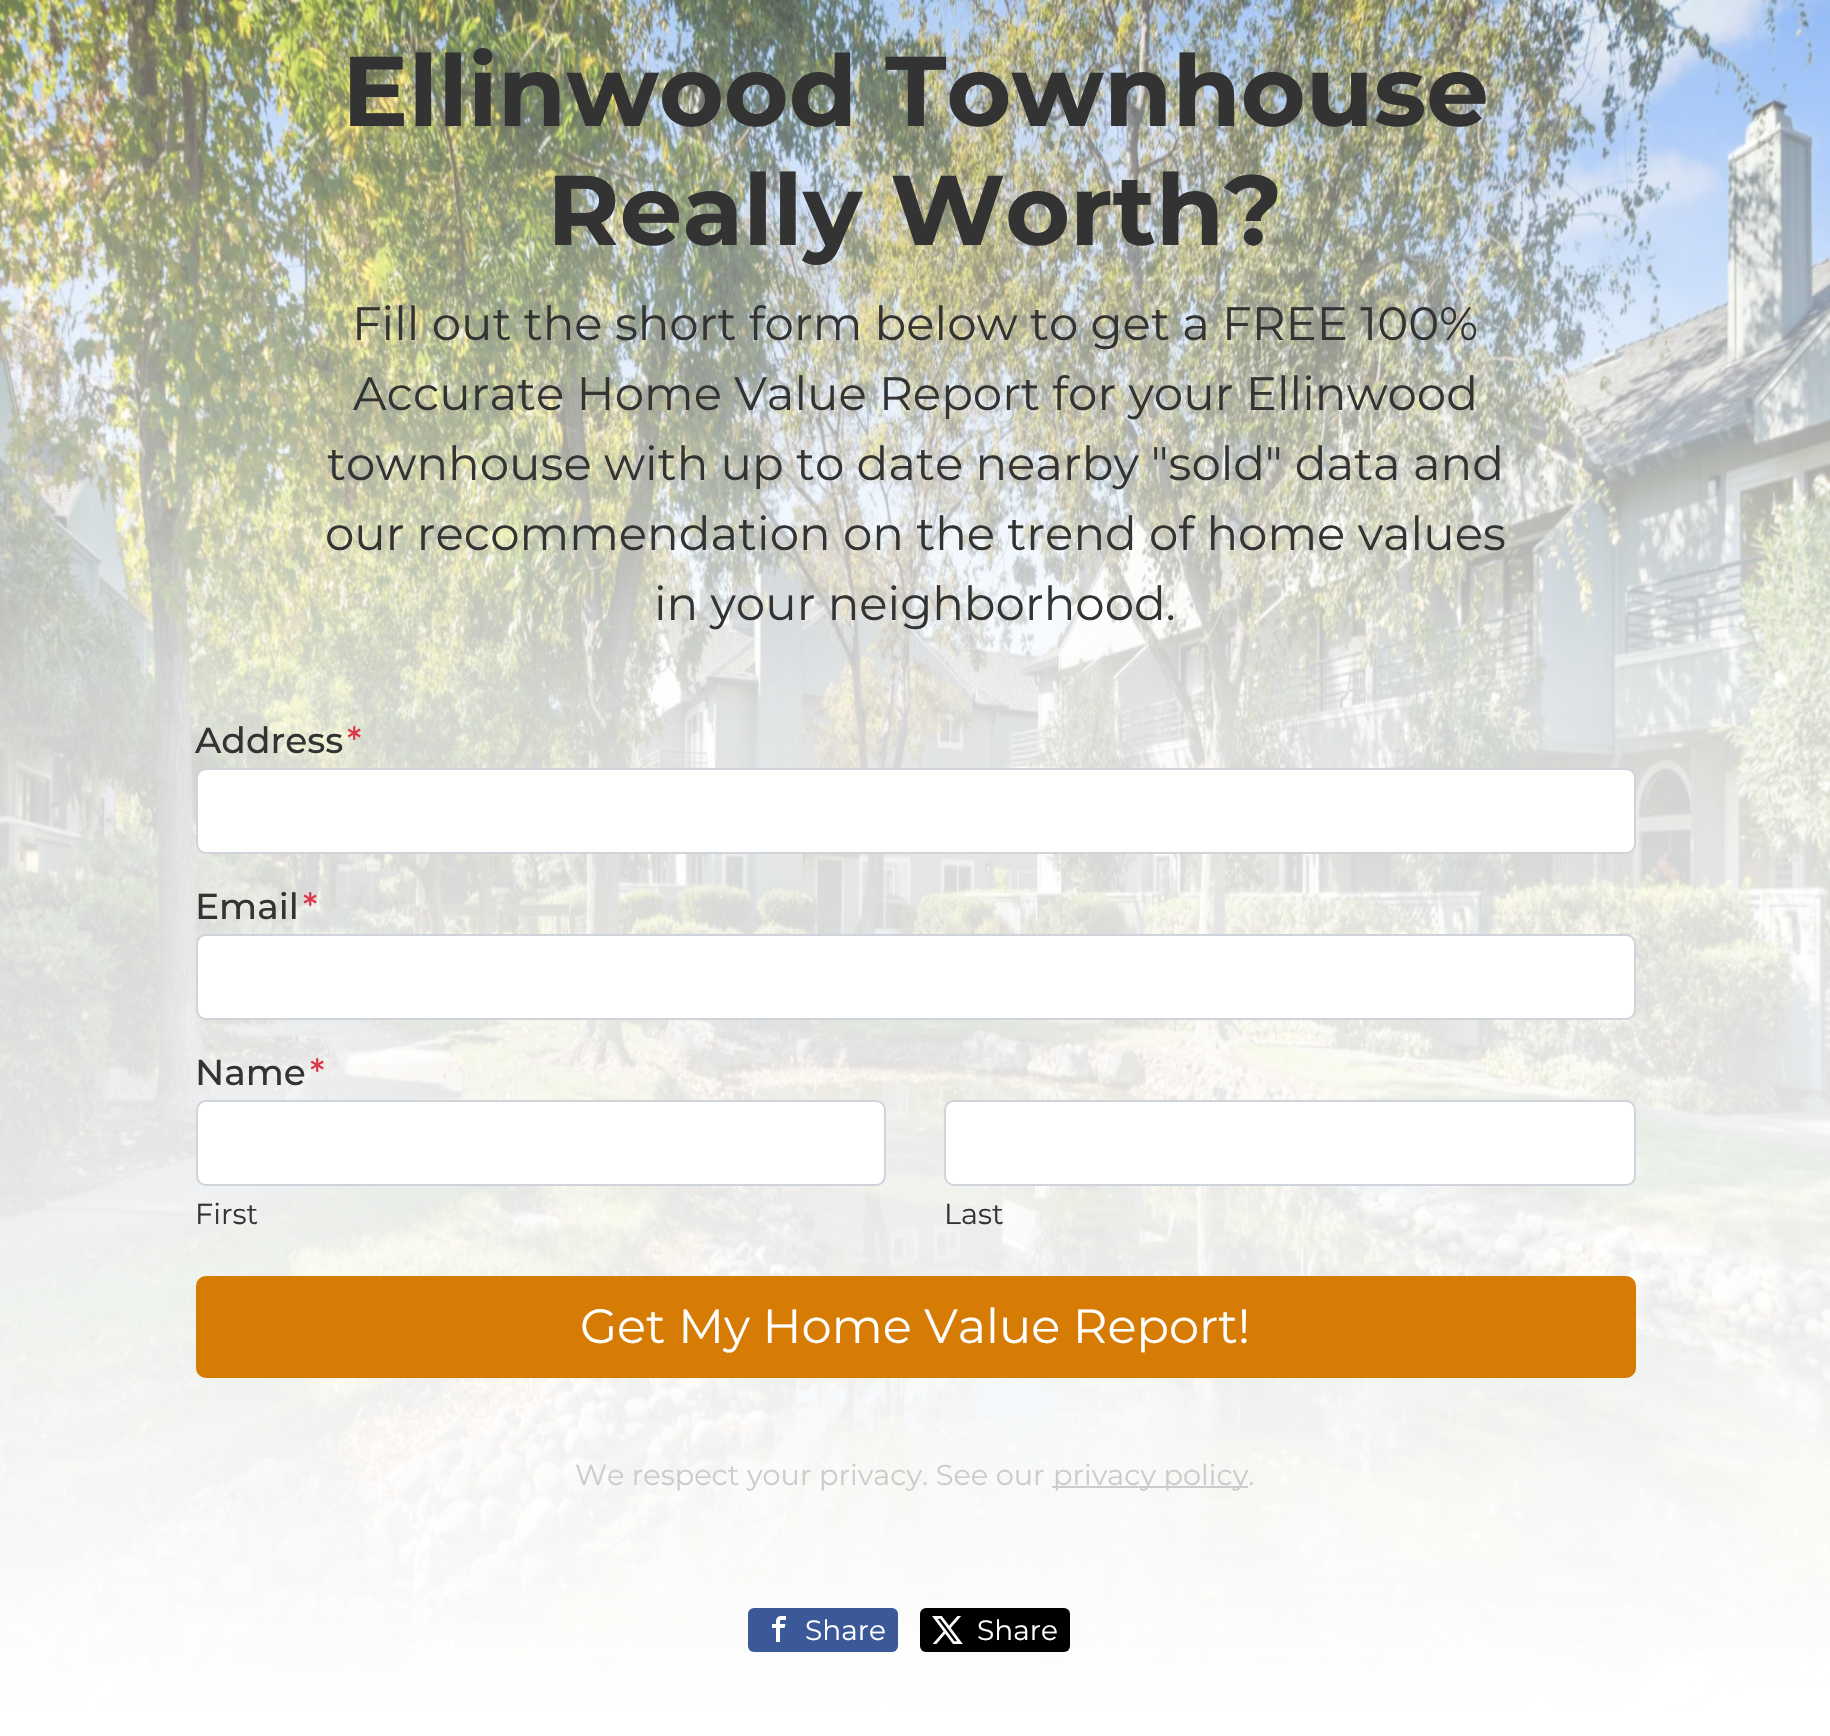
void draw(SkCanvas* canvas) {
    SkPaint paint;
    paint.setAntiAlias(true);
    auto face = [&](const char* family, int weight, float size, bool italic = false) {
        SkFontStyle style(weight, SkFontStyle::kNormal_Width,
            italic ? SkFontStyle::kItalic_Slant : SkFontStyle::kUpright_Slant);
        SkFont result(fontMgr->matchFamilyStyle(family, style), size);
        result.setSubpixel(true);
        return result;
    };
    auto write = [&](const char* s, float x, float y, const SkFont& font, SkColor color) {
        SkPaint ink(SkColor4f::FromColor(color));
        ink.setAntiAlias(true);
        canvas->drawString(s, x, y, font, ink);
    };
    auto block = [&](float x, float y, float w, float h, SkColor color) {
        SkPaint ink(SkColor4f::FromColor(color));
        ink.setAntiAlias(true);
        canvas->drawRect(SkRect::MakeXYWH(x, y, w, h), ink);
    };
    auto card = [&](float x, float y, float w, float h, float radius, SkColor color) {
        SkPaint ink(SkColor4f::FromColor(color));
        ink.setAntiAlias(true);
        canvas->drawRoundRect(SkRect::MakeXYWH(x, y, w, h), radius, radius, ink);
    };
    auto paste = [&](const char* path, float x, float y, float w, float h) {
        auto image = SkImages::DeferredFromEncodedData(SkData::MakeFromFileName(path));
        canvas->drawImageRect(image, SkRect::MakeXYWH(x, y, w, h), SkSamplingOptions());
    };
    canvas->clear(SK_ColorWHITE);
    paste("pic1.png", 0, 0, 1830, 1705);
    {
        const SkColor colors[] = {SkColorSetARGB(77, 255, 255, 255), SkColorSetARGB(204, 255, 255, 255), SK_ColorWHITE};
        const float stops[] = {0, 0.4f, 1};
        const SkPoint ends[] = {{915, 0}, {915, 1736}};
        paint.setShader(SkGradientShader::MakeLinear(ends, colors, stops, 3, SkTileMode::kClamp));
        paint.setAlpha(255);
    }
    canvas->drawRect(SkRect::MakeXYWH(0, 0, 1830, 1705), paint);
    auto kFont1 = face("Montserrat", 700, 99);
    write("Ellinwood Townhouse", 342, 126, kFont1, SkColorSetRGB(51, 51, 51));
    write("Really Worth?", 547, 245, kFont1, SkColorSetRGB(51, 51, 51));
    auto kFont2 = face("Montserrat", 400, 46.8f);
    write("Fill out the short form below to get a FREE 100%", 352, 340, kFont2, SkColorSetRGB(51, 51, 51));
    write("Accurate Home Value Report for your Ellinwood", 353, 410, kFont2, SkColorSetRGB(51, 51, 51));
    write("townhouse with up to date nearby \"sold\" data and", 327, 480, kFont2, SkColorSetRGB(51, 51, 51));
    write("our recommendation on the trend of home values", 325, 550, kFont2, SkColorSetRGB(51, 51, 51));
    write("in your neighborhood.", 654, 620, kFont2, SkColorSetRGB(51, 51, 51));
    auto kFont3 = face("Montserrat", 500, 36);
    write("Address", 195, 753, kFont3, SkColorSetRGB(51, 51, 51));
    write("*", 347, 753, kFont3, SkColorSetRGB(220, 53, 69));
    paint.setShader(nullptr);
    paint.setColor(SK_ColorWHITE);
    canvas->drawRoundRect(SkRect::MakeXYWH(197, 769, 1438, 84), 9, 9, paint);
    paint.setStyle(SkPaint::kStroke_Style);
    paint.setStrokeWidth(2);
    paint.setColor(SkColorSetRGB(206, 212, 218));
    canvas->drawRoundRect(SkRect::MakeXYWH(197, 769, 1438, 84), 9, 9, paint);
    write("Email", 195, 919, kFont3, SkColorSetRGB(51, 51, 51));
    write("*", 303, 919, kFont3, SkColorSetRGB(220, 53, 69));
    paint.setStyle(SkPaint::kFill_Style);
    paint.setColor(SK_ColorWHITE);
    canvas->drawRoundRect(SkRect::MakeXYWH(197, 935, 1438, 84), 9, 9, paint);
    paint.setStyle(SkPaint::kStroke_Style);
    paint.setColor(SkColorSetRGB(206, 212, 218));
    canvas->drawRoundRect(SkRect::MakeXYWH(197, 935, 1438, 84), 9, 9, paint);
    write("Name", 195, 1085, kFont3, SkColorSetRGB(51, 51, 51));
    write("*", 310, 1085, kFont3, SkColorSetRGB(220, 53, 69));
    paint.setStyle(SkPaint::kFill_Style);
    paint.setColor(SK_ColorWHITE);
    canvas->drawRoundRect(SkRect::MakeXYWH(197, 1101, 688, 84), 9, 9, paint);
    paint.setStyle(SkPaint::kStroke_Style);
    paint.setColor(SkColorSetRGB(206, 212, 218));
    canvas->drawRoundRect(SkRect::MakeXYWH(197, 1101, 688, 84), 9, 9, paint);
    auto kFont4 = face("Montserrat", 400, 28.75f);
    write("First", 195, 1224, kFont4, SkColorSetRGB(51, 51, 51));
    paint.setStyle(SkPaint::kFill_Style);
    paint.setColor(SK_ColorWHITE);
    canvas->drawRoundRect(SkRect::MakeXYWH(945, 1101, 690, 84), 9, 9, paint);
    paint.setStyle(SkPaint::kStroke_Style);
    paint.setColor(SkColorSetRGB(206, 212, 218));
    canvas->drawRoundRect(SkRect::MakeXYWH(945, 1101, 690, 84), 9, 9, paint);
    write("Last", 944, 1224, kFont4, SkColorSetRGB(51, 51, 51));
    paint.setStyle(SkPaint::kFill_Style);
    paint.setColor(SkColorSetRGB(214, 123, 4));
    canvas->drawRoundRect(SkRect::MakeXYWH(197, 1277, 1438, 100), 9, 9, paint);
    paint.setStyle(SkPaint::kStroke_Style);
    canvas->drawRoundRect(SkRect::MakeXYWH(197, 1277, 1438, 100), 9, 9, paint);
    auto kFont5 = face("Montserrat", 400, 48);
    write("Get My Home Value Report!", 580, 1343, kFont5, SK_ColorWHITE);
    write("We respect your privacy. See our", 575, 1485, kFont4, SkColorSetRGB(204, 204, 204));
    block(1052, 1486, 196, 2, SkColorSetRGB(204, 204, 204));
    write("privacy policy.", 1053, 1485, kFont4, SkColorSetRGB(204, 204, 204));
    card(748, 1608, 150, 44, 6, SkColorSetRGB(59, 89, 152));
    paste("pic2.png", 772, 1616, 14, 26);
    auto kFont6 = face("Montserrat", 400, 28);
    write("Share", 805, 1640, kFont6, SK_ColorWHITE);
    card(920, 1608, 150, 44, 6, SK_ColorBLACK);
    paste("pic3.png", 932, 1616, 31, 28);
    write("Share", 977, 1640, kFont6, SK_ColorWHITE);
}
